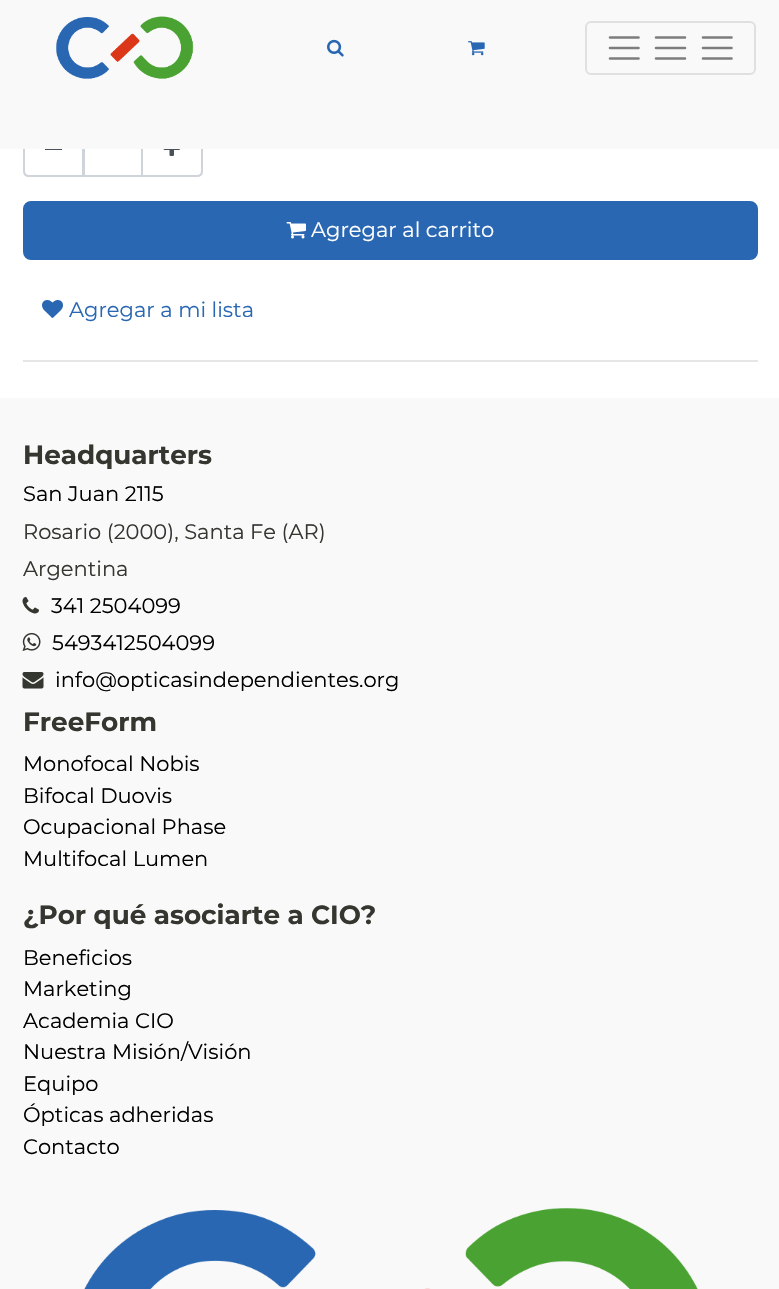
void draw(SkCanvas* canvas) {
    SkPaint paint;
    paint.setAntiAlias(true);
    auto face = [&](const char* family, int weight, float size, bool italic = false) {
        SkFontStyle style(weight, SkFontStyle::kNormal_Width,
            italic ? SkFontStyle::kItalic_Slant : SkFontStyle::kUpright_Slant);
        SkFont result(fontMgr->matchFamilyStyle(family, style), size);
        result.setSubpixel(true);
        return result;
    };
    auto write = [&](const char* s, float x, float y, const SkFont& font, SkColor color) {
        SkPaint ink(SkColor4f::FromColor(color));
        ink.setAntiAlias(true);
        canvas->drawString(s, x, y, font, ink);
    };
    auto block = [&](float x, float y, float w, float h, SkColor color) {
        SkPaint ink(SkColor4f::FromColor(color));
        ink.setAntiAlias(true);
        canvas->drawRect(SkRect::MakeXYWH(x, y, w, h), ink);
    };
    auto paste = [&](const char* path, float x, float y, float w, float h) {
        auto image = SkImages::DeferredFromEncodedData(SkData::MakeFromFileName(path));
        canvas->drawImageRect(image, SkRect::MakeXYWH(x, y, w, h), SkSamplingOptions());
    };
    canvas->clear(SK_ColorWHITE);
    paint.setStyle(SkPaint::kStroke_Style);
    paint.setStrokeWidth(2);
    paint.setColor(SkColorSetRGB(206, 212, 218));
    canvas->drawRect(SkRect::MakeXYWH(84, 123, 58, 53), paint);
    canvas->drawPath(SkPathBuilder().moveTo(29, 123).lineTo(83, 123).lineTo(83, 176).lineTo(29, 176).cubicTo(26, 176, 24, 174, 24, 171).lineTo(24, 128).cubicTo(24, 125, 26, 123, 29, 123).close().detach(), paint);
    canvas->drawPath(SkPathBuilder().moveTo(142, 123).lineTo(197, 123).cubicTo(200, 123, 202, 125, 202, 128).lineTo(202, 171).cubicTo(202, 174, 200, 176, 197, 176).lineTo(142, 176).close().detach(), paint);
    block(0, 0, 779, 149, SkColorSetRGB(249, 249, 249));
    paste("pic1.png", 56, 16, 138, 63);
    paste("pic2.png", 327, 39, 17, 18);
    paste("pic3.png", 468, 41, 17, 15);
    paint.setColor(SkColorSetRGB(224, 224, 224));
    canvas->drawRoundRect(SkRect::MakeXYWH(586, 22, 169, 52), 5, 5, paint);
    paint.setStrokeWidth(2.6f);
    paint.setStrokeCap(SkPaint::kRound_Cap);
    paint.setColor(SkColorSetRGB(125, 125, 125));
    canvas->drawPath(SkPathBuilder().moveTo(610, 37.5f).lineTo(638.5f, 37.5f).moveTo(610, 48).lineTo(638.5f, 48).moveTo(610, 58.5f).lineTo(638.5f, 58.5f).detach(), paint);
    canvas->drawPath(SkPathBuilder().moveTo(656, 37.5f).lineTo(685, 37.5f).moveTo(656, 48).lineTo(685, 48).moveTo(656, 58.5f).lineTo(685, 58.5f).detach(), paint);
    canvas->drawPath(SkPathBuilder().moveTo(703, 37.5f).lineTo(731.5f, 37.5f).moveTo(703, 48).lineTo(731.5f, 48).moveTo(703, 58.5f).lineTo(731.5f, 58.5f).detach(), paint);
    block(45, 149, 17, 1, SkColorSetRGB(73, 80, 87));
    paste("pic4.png", 163, 149, 17, 7);
    paint.setStyle(SkPaint::kFill_Style);
    paint.setColor(SkColorSetRGB(41, 103, 179));
    canvas->drawRoundRect(SkRect::MakeXYWH(24, 202, 733, 57), 7, 7, paint);
    paint.setStyle(SkPaint::kStroke_Style);
    paint.setStrokeWidth(2);
    paint.setStrokeCap(SkPaint::kButt_Cap);
    canvas->drawRoundRect(SkRect::MakeXYWH(24, 202, 733, 57), 7, 7, paint);
    paste("pic5.png", 286, 222, 20, 17);
    auto kFont1 = face("Montserrat", 400, 21);
    write("Agregar al carrito", 311, 237, kFont1, SK_ColorWHITE);
    paste("pic6.png", 42, 300, 21, 18);
    write("Agregar a mi lista", 69, 317, kFont1, SkColorSetRGB(41, 103, 179));
    block(23, 360, 735, 2, SkColorSetRGB(230, 230, 230));
    block(0, 398, 779, 891, SkColorSetRGB(249, 249, 249));
    auto kFont2 = face("Montserrat", 700, 26.25f);
    write("Headquarters", 23, 464, kFont2, SkColorSetRGB(52, 54, 47));
    write("San Juan 2115", 23, 501, kFont1, SK_ColorBLACK);
    write("Rosario (2000), Santa Fe (AR)", 23, 539, kFont1, SkColorSetRGB(52, 54, 47));
    write("Argentina", 23, 576, kFont1, SkColorSetRGB(52, 54, 47));
    paste("pic7.png", 22, 597, 17, 17);
    write("341 2504099", 51, 613, kFont1, SK_ColorBLACK);
    paste("pic8.png", 22, 632, 19, 19);
    write("5493412504099", 52, 650, kFont1, SK_ColorBLACK);
    paste("pic9.png", 22, 672, 22, 17);
    write("info@opticasindependientes.org", 55, 687, kFont1, SK_ColorBLACK);
    write("FreeForm", 23, 731, kFont2, SkColorSetRGB(52, 54, 47));
    write("Monofocal Nobis", 23, 771, kFont1, SK_ColorBLACK);
    write("Bifocal Duovis", 23, 803, kFont1, SK_ColorBLACK);
    write("Ocupacional Phase", 23, 834, kFont1, SK_ColorBLACK);
    write("Multifocal Lumen", 23, 866, kFont1, SK_ColorBLACK);
    write("¿Por qué asociarte a CIO?", 23, 924, kFont2, SkColorSetRGB(52, 54, 47));
    write("Beneficios", 23, 965, kFont1, SK_ColorBLACK);
    write("Marketing", 23, 996, kFont1, SK_ColorBLACK);
    write("Academia CIO", 23, 1028, kFont1, SK_ColorBLACK);
    write("Nuestra Misión/Visión", 23, 1059, kFont1, SK_ColorBLACK);
    write("Equipo", 23, 1091, kFont1, SK_ColorBLACK);
    write("Ópticas adheridas", 23, 1122, kFont1, SK_ColorBLACK);
    write("Contacto", 23, 1154, kFont1, SK_ColorBLACK);
    paste("pic10.png", 84, 1208, 614, 81);
}
